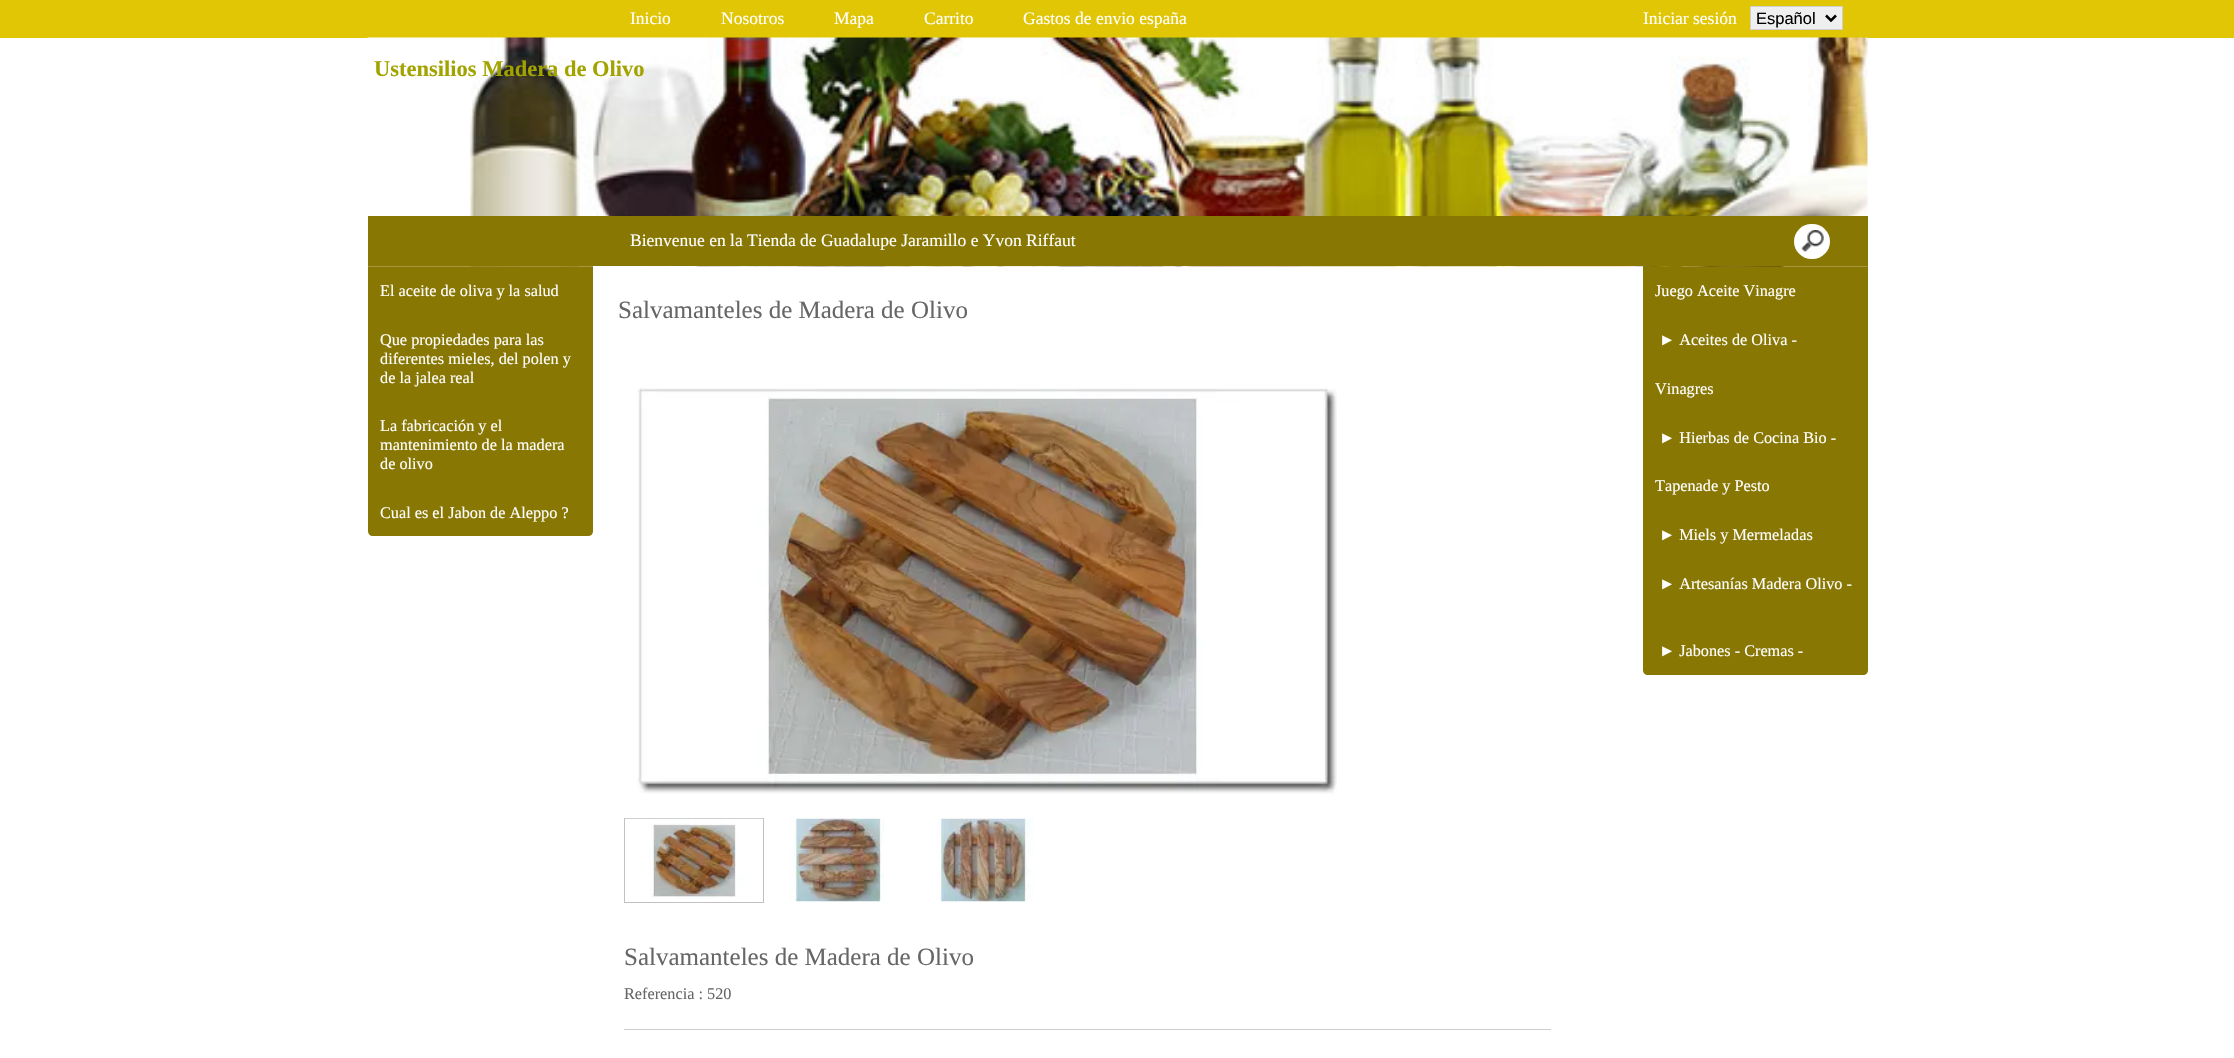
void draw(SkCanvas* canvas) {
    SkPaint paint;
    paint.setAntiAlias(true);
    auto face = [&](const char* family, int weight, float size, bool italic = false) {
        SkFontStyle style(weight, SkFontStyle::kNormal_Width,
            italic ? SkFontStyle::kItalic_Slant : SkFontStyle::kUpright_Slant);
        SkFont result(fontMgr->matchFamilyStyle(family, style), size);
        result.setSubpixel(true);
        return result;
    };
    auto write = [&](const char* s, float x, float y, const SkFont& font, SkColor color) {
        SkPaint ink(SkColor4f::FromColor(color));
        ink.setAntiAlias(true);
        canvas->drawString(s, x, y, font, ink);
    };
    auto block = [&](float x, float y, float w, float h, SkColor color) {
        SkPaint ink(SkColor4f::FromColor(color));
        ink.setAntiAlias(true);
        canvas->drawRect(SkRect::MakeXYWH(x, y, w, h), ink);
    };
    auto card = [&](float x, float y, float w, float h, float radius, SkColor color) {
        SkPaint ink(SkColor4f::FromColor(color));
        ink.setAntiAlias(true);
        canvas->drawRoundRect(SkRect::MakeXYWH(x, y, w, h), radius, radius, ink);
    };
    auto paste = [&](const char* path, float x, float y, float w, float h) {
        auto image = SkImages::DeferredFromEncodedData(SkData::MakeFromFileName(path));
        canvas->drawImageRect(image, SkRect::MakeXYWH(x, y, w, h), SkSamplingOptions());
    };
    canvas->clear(SK_ColorWHITE);
    block(0, 0, 2234, 38, SkColorSetRGB(225, 198, 6));
    auto kFont1 = face("Liberation Serif", 400, 17.5f);
    write("Inicio", 630, 24, kFont1, SK_ColorWHITE);
    write("Nosotros", 721, 24, kFont1, SK_ColorWHITE);
    write("Mapa", 834, 24, kFont1, SK_ColorWHITE);
    write("Carrito", 924, 24, kFont1, SK_ColorWHITE);
    write("Gastos de envio españa", 1023, 24, kFont1, SK_ColorWHITE);
    write("Iniciar sesión", 1643, 24, kFont1, SK_ColorWHITE);
    paint.setColor(SkColorSetRGB(239, 239, 239));
    canvas->drawRect(SkRect::MakeXYWH(1750.5f, 6.5f, 92, 23), paint);
    paint.setStyle(SkPaint::kStroke_Style);
    paint.setStrokeWidth(1);
    paint.setColor(SkColorSetRGB(207, 207, 207));
    canvas->drawRect(SkRect::MakeXYWH(1750.5f, 6.5f, 92, 23), paint);
    paint.setStrokeWidth(2.5f);
    paint.setColor(SK_ColorBLACK);
    canvas->drawPath(SkPathBuilder().moveTo(1826, 15.5f).lineTo(1831, 20.5f).lineTo(1836, 15.5f).detach(), paint);
    auto kFont2 = face("Liberation Sans", 400, 16.5f);
    write("Español", 1756, 24, kFont2, SK_ColorBLACK);
    block(368, 266, 225, 222, SkColorSetRGB(136, 119, 2));
    block(1643, 266, 225, 360, SkColorSetRGB(136, 119, 2));
    paste("pic1.png", 367, 37, 1501, 230);
    auto kFont3 = face("Liberation Serif", 700, 22.5f);
    write("Ustensilios Madera de Olivo", 374, 76, kFont3, SkColorSetRGB(163, 163, 0));
    block(368, 216, 1500, 50, SkColorSetRGB(136, 119, 2));
    write("Bienvenue en la Tienda de Guadalupe Jaramillo e Yvon Riffaut", 630, 246, kFont1, SK_ColorWHITE);
    card(1794, 224, 36, 35, 17.5f, SK_ColorWHITE);
    paste("pic2.png", 1801, 230, 23, 22);
    auto kFont4 = face("Liberation Serif", 400, 16.25f);
    write("El aceite de oliva y la salud", 380, 296, kFont4, SK_ColorWHITE);
    write("Que propiedades para las", 380, 345, kFont4, SK_ColorWHITE);
    write("diferentes mieles, del polen y", 380, 364, kFont4, SK_ColorWHITE);
    write("de la jalea real", 380, 383, kFont4, SK_ColorWHITE);
    write("La fabricación y el", 380, 431, kFont4, SK_ColorWHITE);
    write("mantenimiento de la madera", 380, 450, kFont4, SK_ColorWHITE);
    write("de olivo", 380, 469, kFont4, SK_ColorWHITE);
    paint.setStyle(SkPaint::kFill_Style);
    paint.setColor(SkColorSetRGB(136, 119, 2));
    canvas->drawPath(SkPathBuilder().moveTo(368, 488).lineTo(593, 488).lineTo(593, 531).cubicTo(593, 534, 591, 536, 588, 536).lineTo(373, 536).cubicTo(370, 536, 368, 534, 368, 531).close().detach(), paint);
    write("Cual es el Jabon de Aleppo ?", 380, 518, kFont4, SK_ColorWHITE);
    auto kFont5 = face("Liberation Serif", 400, 25);
    write("Salvamanteles de Madera de Olivo", 618, 318, kFont5, SkColorSetRGB(102, 102, 102));
    paste("pic3.png", 637, 388, 700, 406);
    paint.setStyle(SkPaint::kStroke_Style);
    paint.setStrokeWidth(1);
    paint.setColor(SkColorSetRGB(193, 193, 193));
    canvas->drawRect(SkRect::MakeXYWH(624.5f, 818.5f, 139, 84), paint);
    paste("pic4.png", 625, 818, 138, 81);
    paste("pic5.png", 789, 818, 95, 84);
    paste("pic6.png", 936, 818, 98, 84);
    write("Salvamanteles de Madera de Olivo", 624, 965, kFont5, SkColorSetRGB(102, 102, 102));
    block(624, 1029, 927, 1, SkColorSetRGB(204, 204, 204));
    write("Referencia : 520", 624, 999, kFont4, SkColorSetRGB(102, 102, 102));
    write("Juego Aceite Vinagre", 1655, 296, kFont4, SK_ColorWHITE);
    write("► Aceites de Oliva -", 1659, 345, kFont4, SK_ColorWHITE);
    write("Vinagres", 1655, 394, kFont4, SK_ColorWHITE);
    write("► Hierbas de Cocina Bio -", 1659, 443, kFont4, SK_ColorWHITE);
    write("Tapenade y Pesto", 1655, 491, kFont4, SK_ColorWHITE);
    write("► Miels y Mermeladas", 1659, 540, kFont4, SK_ColorWHITE);
    write("► Artesanías Madera Olivo -", 1659, 589, kFont4, SK_ColorWHITE);
    paint.setStyle(SkPaint::kFill_Style);
    paint.setColor(SkColorSetRGB(136, 119, 2));
    canvas->drawPath(SkPathBuilder().moveTo(1643, 626).lineTo(1868, 626).lineTo(1868, 670).cubicTo(1868, 673, 1866, 675, 1863, 675).lineTo(1648, 675).cubicTo(1645, 675, 1643, 673, 1643, 670).close().detach(), paint);
    write("► Jabones - Cremas -", 1659, 656, kFont4, SK_ColorWHITE);
}
